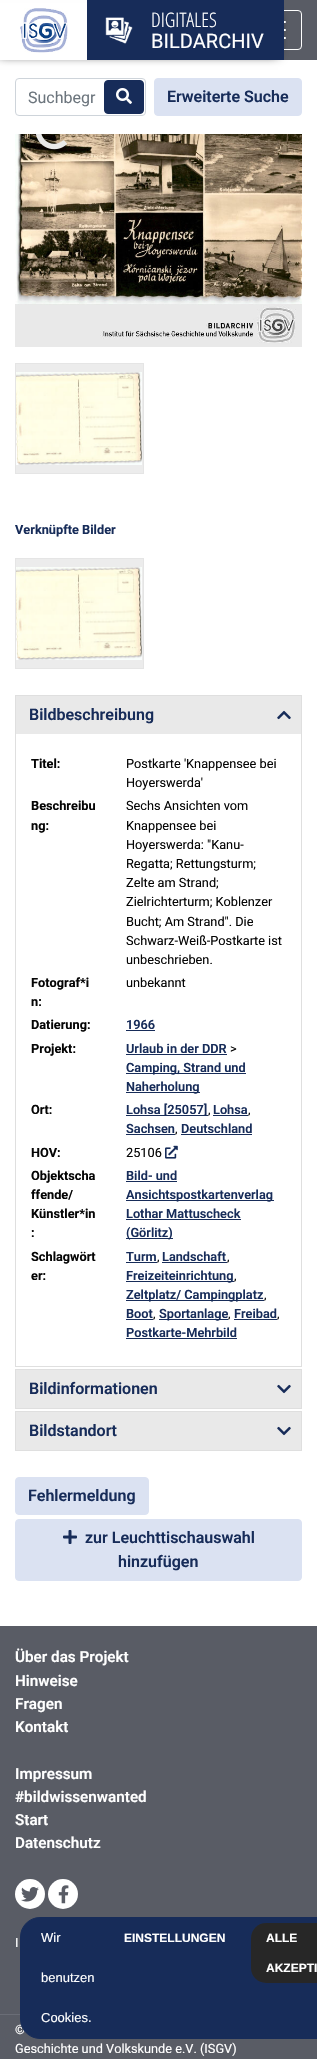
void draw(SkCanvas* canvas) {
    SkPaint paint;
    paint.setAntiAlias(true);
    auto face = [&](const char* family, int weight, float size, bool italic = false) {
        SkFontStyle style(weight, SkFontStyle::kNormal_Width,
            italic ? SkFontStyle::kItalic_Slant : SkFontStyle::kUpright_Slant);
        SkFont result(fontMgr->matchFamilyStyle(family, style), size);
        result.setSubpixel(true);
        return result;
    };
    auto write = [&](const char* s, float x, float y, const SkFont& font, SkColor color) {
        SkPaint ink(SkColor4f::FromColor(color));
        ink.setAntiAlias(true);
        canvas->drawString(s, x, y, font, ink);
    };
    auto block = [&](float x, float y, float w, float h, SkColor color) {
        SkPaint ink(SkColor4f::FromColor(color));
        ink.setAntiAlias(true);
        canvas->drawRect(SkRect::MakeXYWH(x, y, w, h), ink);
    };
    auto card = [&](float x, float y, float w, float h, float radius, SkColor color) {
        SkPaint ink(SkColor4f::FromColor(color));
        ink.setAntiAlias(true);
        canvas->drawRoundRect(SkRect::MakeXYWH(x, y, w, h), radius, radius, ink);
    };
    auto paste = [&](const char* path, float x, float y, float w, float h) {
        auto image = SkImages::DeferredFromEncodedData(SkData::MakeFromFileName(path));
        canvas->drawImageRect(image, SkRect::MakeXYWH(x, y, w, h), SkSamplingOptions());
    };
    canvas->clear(SK_ColorWHITE);
    block(284, 0, 33, 60, SkColorSetRGB(89, 92, 101));
    paint.setColor(SkColorSetRGB(5, 5, 5));
    paint.setMaskFilter(SkMaskFilter::MakeBlur(kNormal_SkBlurStyle, 5));
    canvas->drawRect(SkRect::MakeXYWH(-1, 15, 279, 40), paint);
    paint.setMaskFilter(nullptr);
    block(0, 3, 87, 57, SK_ColorWHITE);
    paste("pic1.png", 20, 8, 48, 45);
    paint.setStyle(SkPaint::kStroke_Style);
    paint.setStrokeWidth(1);
    paint.setColor(SK_ColorWHITE);
    canvas->drawRoundRect(SkRect::MakeXYWH(246.5f, 10.5f, 55, 39), 3.5f, 3.5f, paint);
    block(87, 0, 197, 60, SkColorSetRGB(23, 44, 89));
    paste("pic2.png", 105, 17, 28, 27);
    auto kFont1 = face("Open Sans Condensed", 300, 20);
    write("DIGITALES", 151, 27, kFont1, SK_ColorWHITE);
    auto kFont2 = face("Roboto", 400, 20);
    write("BILDARCHIV", 151, 48, kFont2, SK_ColorWHITE);
    paste("pic3.png", 284, 21, 2, 18);
    paint.setColor(SkColorSetRGB(206, 212, 218));
    canvas->drawRoundRect(SkRect::MakeXYWH(15.5f, 78.5f, 130, 37), 3.5f, 3.5f, paint);
    auto kFont3 = face("Roboto", 400, 16);
    write("Suchbegr", 28, 103, kFont3, SkColorSetRGB(108, 117, 125));
    paint.setStyle(SkPaint::kFill_Style);
    paint.setColor(SkColorSetRGB(23, 44, 89));
    canvas->drawRoundRect(SkRect::MakeXYWH(104.5f, 80.5f, 39, 33), 3.5f, 3.5f, paint);
    paint.setStyle(SkPaint::kStroke_Style);
    canvas->drawRoundRect(SkRect::MakeXYWH(104.5f, 80.5f, 39, 33), 3.5f, 3.5f, paint);
    paste("pic4.png", 116, 88, 16, 16);
    paint.setStyle(SkPaint::kFill_Style);
    paint.setColor(SkColorSetRGB(219, 226, 242));
    canvas->drawRoundRect(SkRect::MakeXYWH(154.5f, 78.5f, 147, 37), 3.5f, 3.5f, paint);
    paint.setStyle(SkPaint::kStroke_Style);
    canvas->drawRoundRect(SkRect::MakeXYWH(154.5f, 78.5f, 147, 37), 3.5f, 3.5f, paint);
    auto kFont4 = face("Roboto", 600, 16);
    write("Erweiterte Suche", 167, 102, kFont4, SkColorSetRGB(23, 44, 89));
    paste("pic5.png", 15, 134, 287, 213);
    paste("pic6.png", 36, 134, 31, 16);
    paint.setStyle(SkPaint::kFill_Style);
    paint.setColor(SkColorSetRGB(236, 236, 236));
    canvas->drawRect(SkRect::MakeXYWH(15.5f, 363.5f, 128, 110), paint);
    paint.setStyle(SkPaint::kStroke_Style);
    paint.setColor(SkColorSetRGB(229, 229, 229));
    canvas->drawRect(SkRect::MakeXYWH(15.5f, 363.5f, 128, 110), paint);
    paste("pic7.png", 16, 372, 126, 93);
    auto kFont5 = face("Roboto", 700, 12.75f);
    write("Verknüpfte Bilder", 15, 534, kFont5, SkColorSetRGB(23, 44, 89));
    paint.setStyle(SkPaint::kFill_Style);
    paint.setColor(SkColorSetRGB(236, 236, 236));
    canvas->drawRect(SkRect::MakeXYWH(15.5f, 558.5f, 128, 110), paint);
    paint.setStyle(SkPaint::kStroke_Style);
    paint.setColor(SkColorSetRGB(229, 229, 229));
    canvas->drawRect(SkRect::MakeXYWH(15.5f, 558.5f, 128, 110), paint);
    paste("pic7.png", 16, 567, 126, 93);
    paint.setColor(SkColorSetRGB(223, 223, 223));
    canvas->drawRect(SkRect::MakeXYWH(15.5f, 695.5f, 286, 671), paint);
    block(16, 696, 285, 38, SkColorSetRGB(233, 233, 233));
    write("Bildbeschreibung", 29, 720, kFont4, SkColorSetRGB(23, 44, 89));
    paste("pic8.png", 277, 710, 14, 10);
    write("Titel:", 31, 768, kFont5, SkColorSetRGB(5, 5, 5));
    auto kFont6 = face("Roboto", 400, 12.75f);
    write("Postkarte 'Knappensee bei", 126, 768, kFont6, SkColorSetRGB(5, 5, 5));
    write("Hoyerswerda'", 126, 787, kFont6, SkColorSetRGB(5, 5, 5));
    write("Beschreibu", 31, 810, kFont5, SkColorSetRGB(5, 5, 5));
    write("ng:", 31, 830, kFont5, SkColorSetRGB(5, 5, 5));
    write("Sechs Ansichten vom", 126, 810, kFont6, SkColorSetRGB(5, 5, 5));
    write("Knappensee bei", 126, 830, kFont6, SkColorSetRGB(5, 5, 5));
    write("Hoyerswerda: \"Kanu-", 126, 849, kFont6, SkColorSetRGB(5, 5, 5));
    write("Regatta; Rettungsturm;", 126, 868, kFont6, SkColorSetRGB(5, 5, 5));
    write("Zelte am Strand;", 126, 887, kFont6, SkColorSetRGB(5, 5, 5));
    write("Zielrichterturm; Koblenzer", 126, 906, kFont6, SkColorSetRGB(5, 5, 5));
    write("Bucht; Am Strand\". Die", 126, 926, kFont6, SkColorSetRGB(5, 5, 5));
    write("Schwarz-Weiß-Postkarte ist", 126, 945, kFont6, SkColorSetRGB(5, 5, 5));
    write("unbeschrieben.", 126, 964, kFont6, SkColorSetRGB(5, 5, 5));
    write("Fotograf*i", 31, 987, kFont5, SkColorSetRGB(5, 5, 5));
    write("n:", 31, 1006, kFont5, SkColorSetRGB(5, 5, 5));
    write("unbekannt", 126, 987, kFont6, SkColorSetRGB(5, 5, 5));
    write("Datierung:", 31, 1029, kFont5, SkColorSetRGB(5, 5, 5));
    auto kFont7 = face("Roboto", 600, 12.75f);
    write("1966", 126, 1029, kFont7, SkColorSetRGB(23, 44, 89));
    block(126, 1030, 29, 1, SkColorSetRGB(23, 44, 89));
    write("Projekt:", 31, 1053, kFont5, SkColorSetRGB(5, 5, 5));
    write("Urlaub in der DDR", 126, 1053, kFont7, SkColorSetRGB(23, 44, 89));
    block(126, 1054, 101, 1, SkColorSetRGB(23, 44, 89));
    write(">", 230, 1053, kFont6, SkColorSetRGB(5, 5, 5));
    block(126, 1073, 120, 1, SkColorSetRGB(23, 44, 89));
    write("Camping, Strand und", 126, 1072, kFont7, SkColorSetRGB(23, 44, 89));
    block(126, 1092, 74, 1, SkColorSetRGB(23, 44, 89));
    write("Naherholung", 126, 1091, kFont7, SkColorSetRGB(23, 44, 89));
    write("Ort:", 31, 1114, kFont5, SkColorSetRGB(5, 5, 5));
    block(126, 1115, 82, 1, SkColorSetRGB(23, 44, 89));
    write("Lohsa [25057]", 126, 1114, kFont7, SkColorSetRGB(23, 44, 89));
    write(",", 208, 1114, kFont6, SkColorSetRGB(5, 5, 5));
    write("Lohsa", 213, 1114, kFont7, SkColorSetRGB(23, 44, 89));
    block(213, 1115, 35, 1, SkColorSetRGB(23, 44, 89));
    write(",", 248, 1114, kFont6, SkColorSetRGB(5, 5, 5));
    write("Sachsen", 126, 1133, kFont7, SkColorSetRGB(23, 44, 89));
    block(126, 1134, 49, 1, SkColorSetRGB(23, 44, 89));
    write(",", 175, 1133, kFont6, SkColorSetRGB(5, 5, 5));
    write("Deutschland", 181, 1133, kFont7, SkColorSetRGB(23, 44, 89));
    block(181, 1134, 71, 1, SkColorSetRGB(23, 44, 89));
    write("HOV:", 31, 1157, kFont5, SkColorSetRGB(5, 5, 5));
    write("25106", 126, 1157, kFont6, SkColorSetRGB(5, 5, 5));
    paste("pic9.png", 165, 1145, 13, 14);
    write("Objektscha", 31, 1180, kFont5, SkColorSetRGB(5, 5, 5));
    write("ffende/", 31, 1199, kFont5, SkColorSetRGB(5, 5, 5));
    write("Künstler*in", 31, 1218, kFont5, SkColorSetRGB(5, 5, 5));
    write(":", 31, 1237, kFont5, SkColorSetRGB(5, 5, 5));
    write("Bild- und", 126, 1180, kFont7, SkColorSetRGB(23, 44, 89));
    block(126, 1181, 51, 1, SkColorSetRGB(23, 44, 89));
    block(126, 1200, 148, 1, SkColorSetRGB(23, 44, 89));
    write("Ansichtspostkartenverlag", 126, 1199, kFont7, SkColorSetRGB(23, 44, 89));
    write("Lothar Mattuscheck", 126, 1218, kFont7, SkColorSetRGB(23, 44, 89));
    block(126, 1219, 115, 1, SkColorSetRGB(23, 44, 89));
    block(126, 1238, 47, 1, SkColorSetRGB(23, 44, 89));
    write("(Görlitz)", 126, 1237, kFont7, SkColorSetRGB(23, 44, 89));
    write("Schlagwört", 31, 1261, kFont5, SkColorSetRGB(5, 5, 5));
    write("er:", 31, 1280, kFont5, SkColorSetRGB(5, 5, 5));
    write("Turm", 126, 1261, kFont7, SkColorSetRGB(23, 44, 89));
    block(126, 1262, 31, 1, SkColorSetRGB(23, 44, 89));
    write(",", 157, 1261, kFont6, SkColorSetRGB(5, 5, 5));
    write("Landschaft", 162, 1261, kFont7, SkColorSetRGB(23, 44, 89));
    block(162, 1262, 65, 1, SkColorSetRGB(23, 44, 89));
    write(",", 227, 1261, kFont6, SkColorSetRGB(5, 5, 5));
    block(126, 1281, 108, 1, SkColorSetRGB(23, 44, 89));
    write("Freizeiteinrichtung", 126, 1280, kFont7, SkColorSetRGB(23, 44, 89));
    write(",", 234, 1280, kFont6, SkColorSetRGB(5, 5, 5));
    block(126, 1300, 138, 1, SkColorSetRGB(23, 44, 89));
    write("Zeltplatz/ Campingplatz", 126, 1299, kFont7, SkColorSetRGB(23, 44, 89));
    write(",", 264, 1299, kFont6, SkColorSetRGB(5, 5, 5));
    write("Boot", 126, 1318, kFont7, SkColorSetRGB(23, 44, 89));
    block(126, 1319, 27, 1, SkColorSetRGB(23, 44, 89));
    write(",", 153, 1318, kFont6, SkColorSetRGB(5, 5, 5));
    block(159, 1319, 69, 1, SkColorSetRGB(23, 44, 89));
    write("Sportanlage", 159, 1318, kFont7, SkColorSetRGB(23, 44, 89));
    write(",", 228, 1318, kFont6, SkColorSetRGB(5, 5, 5));
    write("Freibad", 234, 1318, kFont7, SkColorSetRGB(23, 44, 89));
    block(234, 1319, 43, 1, SkColorSetRGB(23, 44, 89));
    write(",", 277, 1318, kFont6, SkColorSetRGB(5, 5, 5));
    write("Postkarte-Mehrbild", 126, 1337, kFont7, SkColorSetRGB(23, 44, 89));
    block(126, 1338, 111, 1, SkColorSetRGB(23, 44, 89));
    canvas->drawRect(SkRect::MakeXYWH(15.5f, 1369.5f, 286, 39), paint);
    block(16, 1370, 285, 38, SkColorSetRGB(233, 233, 233));
    write("Bildinformationen", 29, 1394, kFont4, SkColorSetRGB(23, 44, 89));
    paste("pic10.png", 277, 1384, 14, 10);
    canvas->drawRect(SkRect::MakeXYWH(15.5f, 1411.5f, 286, 39), paint);
    block(16, 1412, 285, 38, SkColorSetRGB(233, 233, 233));
    write("Bildstandort", 29, 1436, kFont4, SkColorSetRGB(23, 44, 89));
    paste("pic10.png", 277, 1426, 14, 10);
    paint.setStyle(SkPaint::kFill_Style);
    paint.setColor(SkColorSetRGB(219, 226, 242));
    canvas->drawRoundRect(SkRect::MakeXYWH(15.5f, 1477.5f, 133, 37), 3.5f, 3.5f, paint);
    paint.setStyle(SkPaint::kStroke_Style);
    canvas->drawRoundRect(SkRect::MakeXYWH(15.5f, 1477.5f, 133, 37), 3.5f, 3.5f, paint);
    write("Fehlermeldung", 28, 1501, kFont4, SkColorSetRGB(23, 44, 89));
    paint.setStyle(SkPaint::kFill_Style);
    canvas->drawRoundRect(SkRect::MakeXYWH(15.5f, 1519.5f, 286, 61), 3.5f, 3.5f, paint);
    paint.setStyle(SkPaint::kStroke_Style);
    canvas->drawRoundRect(SkRect::MakeXYWH(15.5f, 1519.5f, 286, 61), 3.5f, 3.5f, paint);
    paste("pic11.png", 63, 1530, 14, 14);
    write("zur Leuchttischauswahl", 85, 1543, kFont4, SkColorSetRGB(23, 44, 89));
    write("hinzufügen", 118, 1567, kFont4, SkColorSetRGB(23, 44, 89));
    block(0, 1626, 317, 433, SkColorSetRGB(89, 92, 101));
    auto kFont8 = face("Roboto", 600, 15.25f);
    write("Über das Projekt", 15, 1662, kFont8, SK_ColorWHITE);
    write("Hinweise", 15, 1686, kFont8, SK_ColorWHITE);
    write("Fragen", 15, 1709, kFont8, SK_ColorWHITE);
    write("Kontakt", 15, 1732, kFont8, SK_ColorWHITE);
    write("Impressum", 15, 1779, kFont8, SK_ColorWHITE);
    write("#bildwissenwanted", 15, 1802, kFont8, SK_ColorWHITE);
    write("Start", 15, 1825, kFont8, SK_ColorWHITE);
    write("Datenschutz", 15, 1848, kFont8, SK_ColorWHITE);
    paint.setStyle(SkPaint::kFill_Style);
    paint.setColor(SK_ColorWHITE);
    canvas->drawCircle(30, 1894, 15, paint);
    paste("pic12.png", 21, 1887, 18, 15);
    canvas->drawCircle(63, 1894, 15, paint);
    paste("pic13.png", 58, 1885, 11, 19);
    write("I", 15, 1947, kFont6, SK_ColorWHITE);
    block(0, 2014, 20, 1, SkColorSetRGB(106, 109, 118));
    write("©", 15, 2034, kFont6, SK_ColorWHITE);
    write("Geschichte und Volkskunde e.V. (ISGV)", 15, 2053, kFont6, SK_ColorWHITE);
    paint.setColor(SkColorSetRGB(23, 44, 89));
    canvas->drawRoundRect(SkRect::MakeXYWH(20.5f, 1917.5f, 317, 121), 19.5f, 19.5f, paint);
    paint.setStyle(SkPaint::kStroke_Style);
    canvas->drawRoundRect(SkRect::MakeXYWH(20.5f, 1917.5f, 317, 121), 19.5f, 19.5f, paint);
    auto kFont9 = face("Liberation Sans", 400, 13);
    write("Wir", 41, 1942, kFont9, SK_ColorWHITE);
    write("benutzen", 41, 1982, kFont9, SK_ColorWHITE);
    write("Cookies.", 41, 2022, kFont9, SK_ColorWHITE);
    auto kFont10 = face("Liberation Sans", 700, 12);
    write("EINSTELLUNGEN", 124, 1942, kFont10, SK_ColorWHITE);
    card(251, 1923, 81, 60, 15, SkColorSetRGB(39, 39, 39));
    write("ALLE", 266, 1942, kFont10, SK_ColorWHITE);
    write("AKZEPTI", 266, 1972, kFont10, SK_ColorWHITE);
}
